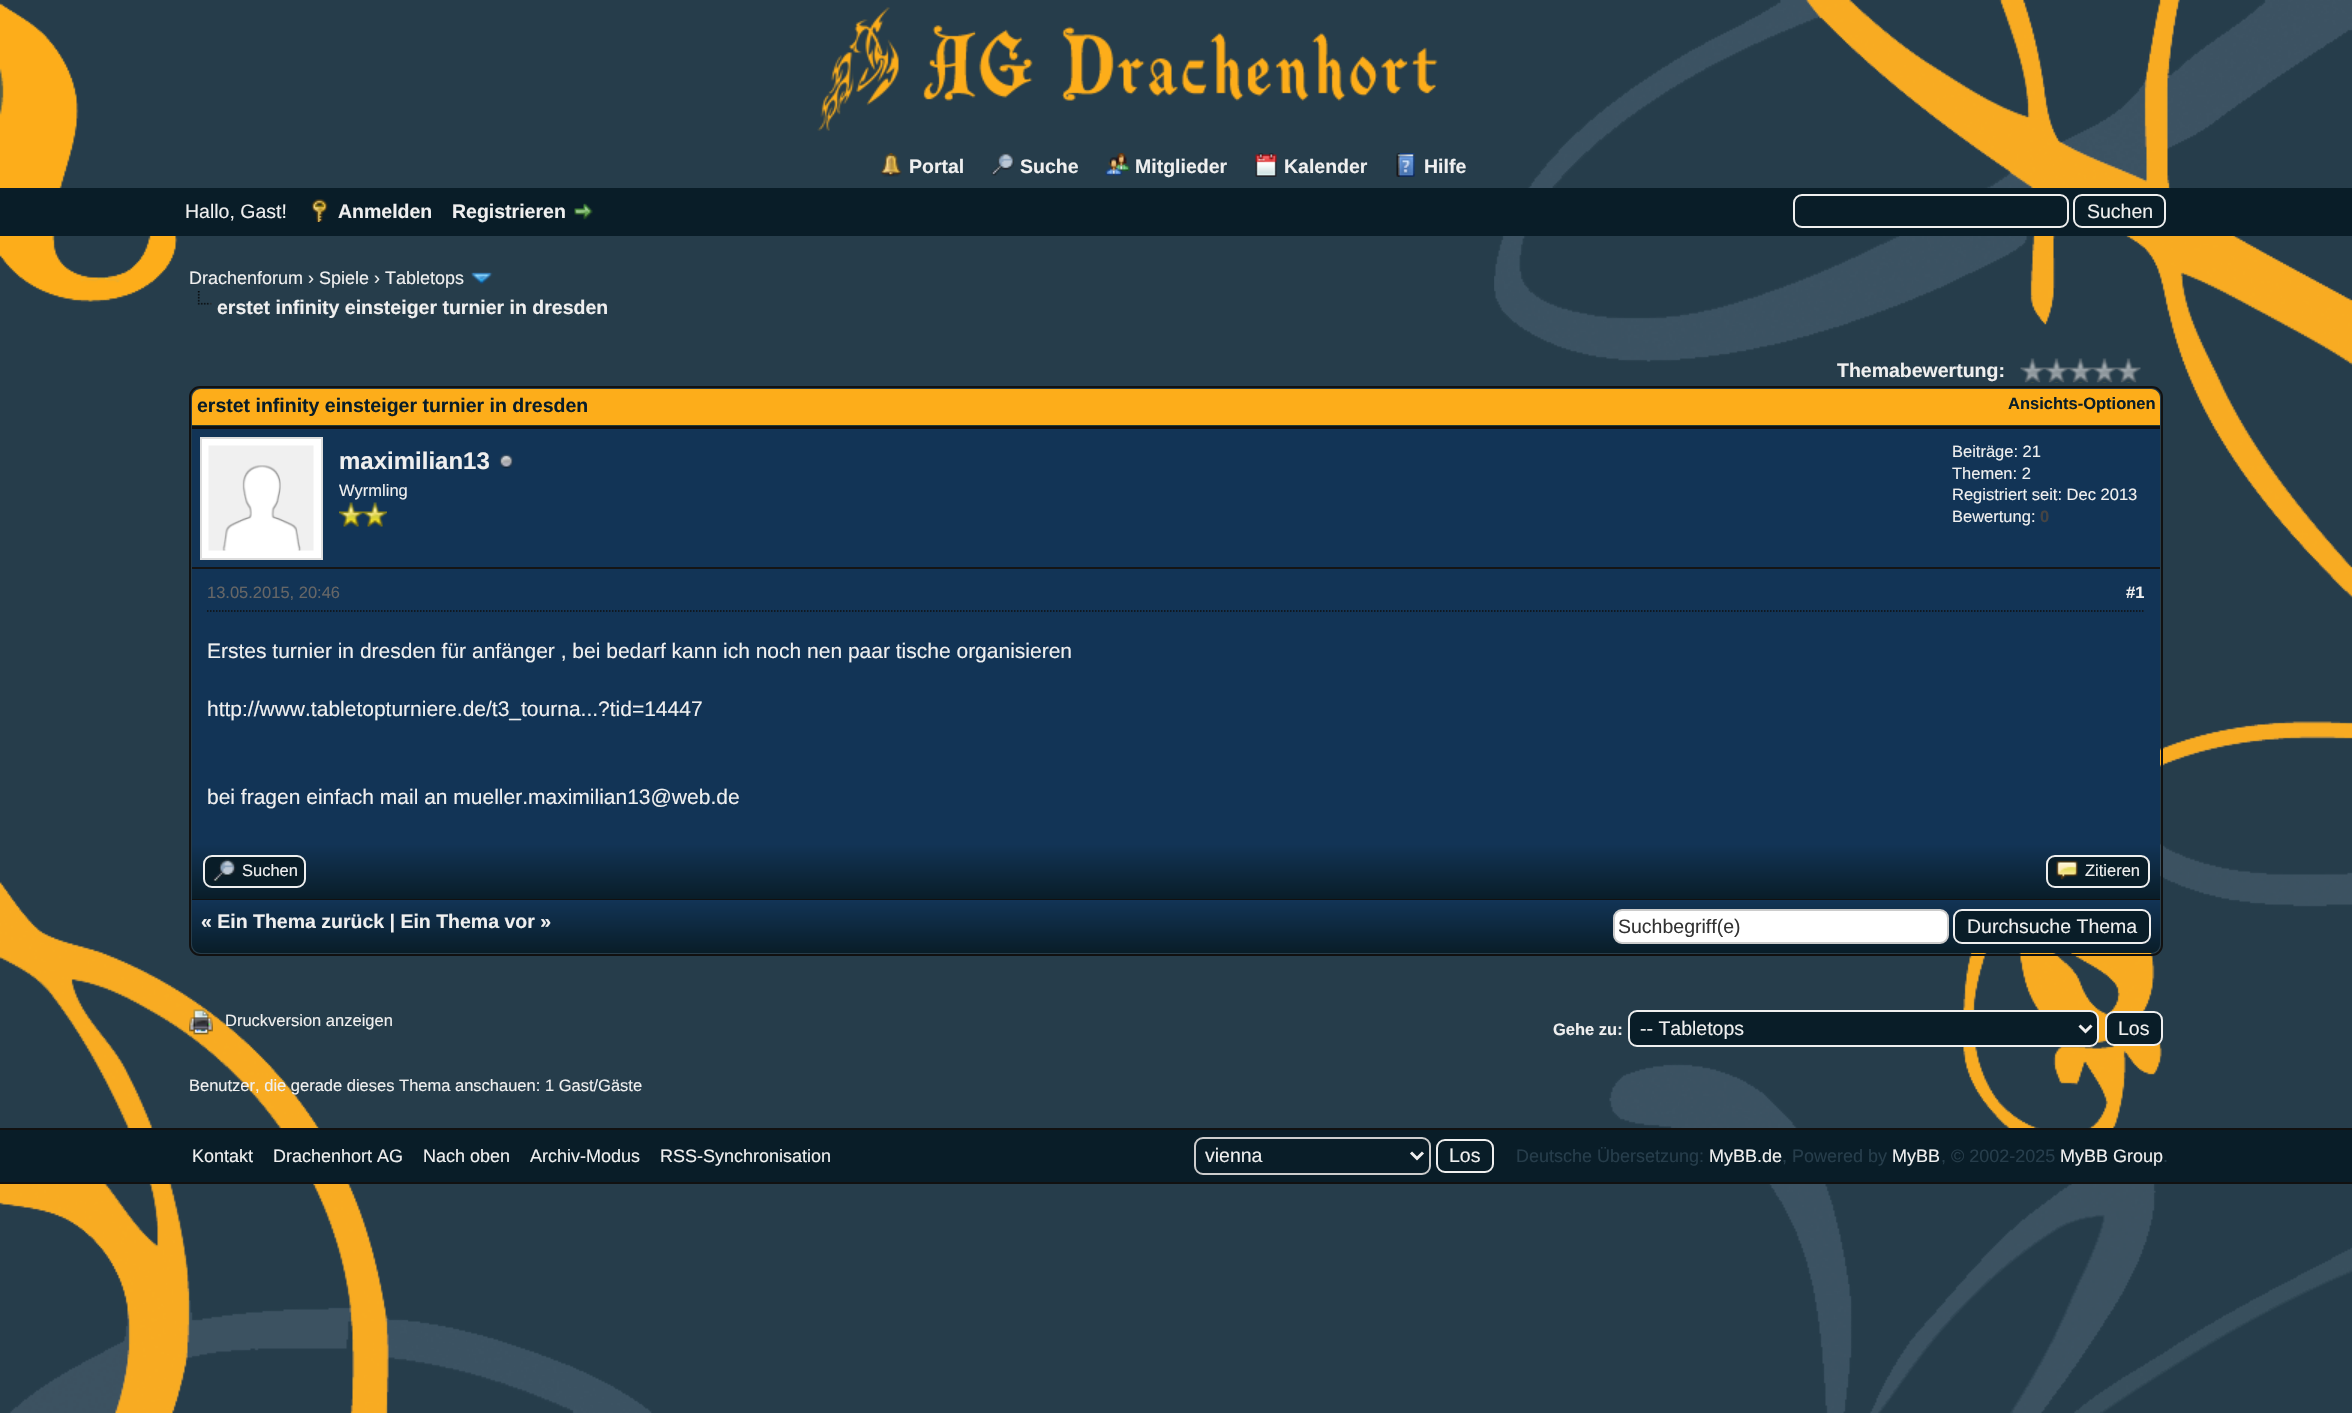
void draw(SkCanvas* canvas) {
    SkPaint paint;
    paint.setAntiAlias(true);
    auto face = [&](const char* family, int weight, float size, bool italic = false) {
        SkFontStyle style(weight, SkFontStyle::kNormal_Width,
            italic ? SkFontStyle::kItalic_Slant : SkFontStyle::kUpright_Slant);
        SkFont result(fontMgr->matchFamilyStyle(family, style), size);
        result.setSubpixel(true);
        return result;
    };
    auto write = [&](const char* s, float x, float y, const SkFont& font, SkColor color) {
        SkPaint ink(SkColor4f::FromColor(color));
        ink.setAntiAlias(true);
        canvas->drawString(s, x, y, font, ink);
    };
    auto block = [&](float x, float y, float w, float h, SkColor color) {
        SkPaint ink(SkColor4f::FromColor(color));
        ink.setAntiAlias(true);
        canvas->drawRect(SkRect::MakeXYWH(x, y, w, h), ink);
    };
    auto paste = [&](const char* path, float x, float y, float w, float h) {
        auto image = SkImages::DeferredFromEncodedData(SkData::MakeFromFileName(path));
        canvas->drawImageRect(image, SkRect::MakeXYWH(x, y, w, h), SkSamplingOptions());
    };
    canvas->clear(SkColorSetRGB(38, 61, 75));
    paste("pic1.png", 0, 2, 178, 300);
    paste("pic2.png", 1494, 0, 858, 598);
    paste("pic3.png", 817, 7, 621, 124);
    paste("pic4.png", 880, 153, 22, 24);
    auto kFont1 = face("Liberation Sans", 700, 19.5f);
    write("Portal", 909, 173, kFont1, SkColorSetRGB(239, 239, 239));
    paste("pic5.png", 991, 153, 23, 23);
    write("Suche", 1020, 173, kFont1, SkColorSetRGB(239, 239, 239));
    paste("pic6.png", 1105, 153, 25, 23);
    write("Mitglieder", 1135, 173, kFont1, SkColorSetRGB(239, 239, 239));
    paste("pic7.png", 1255, 153, 22, 24);
    write("Kalender", 1284, 173, kFont1, SkColorSetRGB(239, 239, 239));
    paste("pic8.png", 1396, 153, 19, 24);
    write("Hilfe", 1424, 173, kFont1, SkColorSetRGB(239, 239, 239));
    block(0, 188, 2352, 48, SkColorSetRGB(9, 29, 40));
    auto kFont2 = face("Liberation Sans", 400, 19.5f);
    write("Hallo, Gast!", 185, 218, kFont2, SkColorSetRGB(239, 239, 239));
    paste("pic9.png", 311, 199, 17, 23);
    write("Anmelden", 338, 218, kFont1, SkColorSetRGB(239, 239, 239));
    write("Registrieren", 452, 218, kFont1, SkColorSetRGB(239, 239, 239));
    paste("pic10.png", 574, 203, 19, 17);
    paint.setStyle(SkPaint::kStroke_Style);
    paint.setStrokeWidth(2);
    paint.setColor(SkColorSetRGB(239, 239, 239));
    canvas->drawRoundRect(SkRect::MakeXYWH(1794, 195, 274, 32), 8, 8, paint);
    canvas->drawRoundRect(SkRect::MakeXYWH(2074, 195, 91, 32), 8, 8, paint);
    write("Suchen", 2087, 218, kFont2, SkColorSetRGB(239, 239, 239));
    auto kFont3 = face("Liberation Sans", 400, 18);
    write("Drachenforum › Spiele › Tabletops", 189, 284, kFont3, SkColorSetRGB(239, 239, 239));
    paste("pic11.png", 471, 272, 22, 12);
    paste("pic12.png", 197, 291, 15, 14);
    write("erstet infinity einsteiger turnier in dresden", 217, 314, kFont1, SkColorSetRGB(239, 239, 239));
    write("Themabewertung:", 1837, 377, kFont1, SkColorSetRGB(239, 239, 239));
    paste("pic13.png", 2020, 358, 121, 25);
    paste("pic20.png", 0, 881, 652, 532);
    paste("pic21.png", 1609, 721, 743, 692);
    paint.setColor(SkColorSetRGB(17, 17, 17));
    canvas->drawRoundRect(SkRect::MakeXYWH(190, 387, 1972, 568), 10, 10, paint);
    paint.setStyle(SkPaint::kFill_Style);
    paint.setColor(SkColorSetRGB(253, 173, 26));
    canvas->drawPath(SkPathBuilder().moveTo(201, 389).lineTo(2151, 389).cubicTo(2156, 389, 2160, 393, 2160, 398).lineTo(2160, 426).lineTo(192, 426).lineTo(192, 398).cubicTo(192, 393, 196, 389, 201, 389).close().detach(), paint);
    block(192, 425, 1968, 1, SkColorSetRGB(38, 60, 48));
    write("erstet infinity einsteiger turnier in dresden", 197, 412, kFont1, SkColorSetRGB(9, 29, 40));
    auto kFont4 = face("Liberation Sans", 700, 16.5f);
    write("Ansichts-Optionen", 2008, 409, kFont4, SkColorSetRGB(9, 29, 40));
    block(192, 429, 1968, 138, SkColorSetRGB(18, 52, 86));
    block(192, 426, 1968, 3, SkColorSetRGB(17, 17, 17));
    block(192, 567, 1968, 2, SkColorSetRGB(21, 21, 21));
    paint.setColor(SK_ColorWHITE);
    canvas->drawRect(SkRect::MakeXYWH(201, 438, 121, 121), paint);
    paint.setStyle(SkPaint::kStroke_Style);
    paint.setColor(SkColorSetRGB(221, 221, 221));
    canvas->drawRect(SkRect::MakeXYWH(201, 438, 121, 121), paint);
    paste("pic14.png", 208, 445, 106, 106);
    auto kFont5 = face("Liberation Sans", 700, 24);
    write("maximilian13", 339, 469, kFont5, SkColorSetRGB(239, 239, 239));
    paste("pic15.png", 499, 454, 14, 15);
    auto kFont6 = face("Liberation Sans", 400, 16.5f);
    write("Wyrmling", 339, 496, kFont6, SkColorSetRGB(239, 239, 239));
    paste("pic16.png", 339, 502, 24, 25);
    paste("pic16.png", 363, 502, 24, 25);
    write("Beiträge: 21", 1952, 457, kFont6, SkColorSetRGB(239, 239, 239));
    write("Themen: 2", 1952, 479, kFont6, SkColorSetRGB(239, 239, 239));
    write("Registriert seit: Dec 2013", 1952, 500, kFont6, SkColorSetRGB(239, 239, 239));
    write("Bewertung:", 1952, 522, kFont6, SkColorSetRGB(239, 239, 239));
    write("0", 2040, 522, kFont4, SkColorSetRGB(68, 68, 68));
    block(192, 569, 1968, 276, SkColorSetRGB(18, 52, 86));
    paint.setStrokeWidth(1.5f);
    paint.setColor(SkColorSetRGB(15, 15, 15));
    paint.setPathEffect(SkDashPathEffect::Make({{1.5f, 1.5f}}, 0));
    canvas->drawPath(SkPathBuilder().moveTo(207, 611).lineTo(2145, 611).detach(), paint);
    paint.setPathEffect(nullptr);
    write("13.05.2015, 20:46", 207, 598, kFont6, SkColorSetRGB(102, 102, 102));
    write("#1", 2126, 598, kFont4, SkColorSetRGB(239, 239, 239));
    auto kFont7 = face("Liberation Sans", 400, 21);
    write("Erstes turnier in dresden für anfänger , bei bedarf kann ich noch nen paar tische organisieren", 207, 658, kFont7, SkColorSetRGB(239, 239, 239));
    write("http://www.tabletopturniere.de/t3_tourna...?tid=14447", 207, 716, kFont7, SkColorSetRGB(239, 239, 239));
    write("bei fragen einfach mail an mueller.maximilian13@web.de", 207, 804, kFont7, SkColorSetRGB(239, 239, 239));
    paint.setStyle(SkPaint::kFill_Style);
    {
        const SkColor colors[] = {SkColorSetRGB(18, 52, 86), SkColorSetRGB(9, 29, 40)};
        const float stops[] = {0, 1};
        const SkPoint ends[] = {{1176, 844}, {1176, 899}};
        paint.setShader(SkGradientShader::MakeLinear(ends, colors, stops, 2, SkTileMode::kClamp));
        paint.setAlpha(255);
    }
    canvas->drawRect(SkRect::MakeXYWH(192, 845, 1968, 54), paint);
    block(192, 899, 1968, 1, SkColorSetRGB(17, 17, 17));
    paint.setShader(nullptr);
    paint.setColor(SkColorSetRGB(9, 29, 40));
    canvas->drawRoundRect(SkRect::MakeXYWH(204, 856, 101, 31), 8, 8, paint);
    paint.setStyle(SkPaint::kStroke_Style);
    paint.setStrokeWidth(2);
    paint.setColor(SkColorSetRGB(239, 239, 239));
    canvas->drawRoundRect(SkRect::MakeXYWH(204, 856, 101, 31), 8, 8, paint);
    paste("pic17.png", 213, 859, 23, 23);
    write("Suchen", 242, 876, kFont6, SkColorSetRGB(239, 239, 239));
    paint.setStyle(SkPaint::kFill_Style);
    paint.setColor(SkColorSetRGB(9, 29, 40));
    canvas->drawRoundRect(SkRect::MakeXYWH(2047, 856, 102, 31), 8, 8, paint);
    paint.setStyle(SkPaint::kStroke_Style);
    paint.setColor(SkColorSetRGB(239, 239, 239));
    canvas->drawRoundRect(SkRect::MakeXYWH(2047, 856, 102, 31), 8, 8, paint);
    paste("pic18.png", 2056, 860, 22, 20);
    write("Zitieren", 2085, 876, kFont6, SkColorSetRGB(239, 239, 239));
    paint.setStyle(SkPaint::kFill_Style);
    {
        const SkColor colors[] = {SkColorSetRGB(18, 52, 86), SkColorSetRGB(9, 29, 40)};
        const float stops[] = {0, 1};
        const SkPoint ends[] = {{1176, 900}, {1176, 953}};
        paint.setShader(SkGradientShader::MakeLinear(ends, colors, stops, 2, SkTileMode::kClamp));
        paint.setAlpha(255);
    }
    canvas->drawPath(SkPathBuilder().moveTo(192, 900).lineTo(2160, 900).lineTo(2160, 944).cubicTo(2160, 949, 2156, 953, 2151, 953).lineTo(201, 953).cubicTo(196, 953, 192, 949, 192, 944).close().detach(), paint);
    write("« Ein Thema zurück | Ein Thema vor »", 201, 928, kFont1, SkColorSetRGB(239, 239, 239));
    paint.setShader(nullptr);
    paint.setColor(SK_ColorWHITE);
    canvas->drawRoundRect(SkRect::MakeXYWH(1614, 910, 334, 33), 8, 8, paint);
    paint.setStyle(SkPaint::kStroke_Style);
    paint.setColor(SkColorSetRGB(204, 204, 204));
    canvas->drawRoundRect(SkRect::MakeXYWH(1614, 910, 334, 33), 8, 8, paint);
    write("Suchbegriff(e)", 1618, 933, kFont2, SkColorSetRGB(51, 51, 51));
    paint.setStyle(SkPaint::kFill_Style);
    paint.setColor(SkColorSetRGB(9, 29, 40));
    canvas->drawRoundRect(SkRect::MakeXYWH(1954, 910, 196, 33), 8, 8, paint);
    paint.setStyle(SkPaint::kStroke_Style);
    paint.setColor(SkColorSetRGB(239, 239, 239));
    canvas->drawRoundRect(SkRect::MakeXYWH(1954, 910, 196, 33), 8, 8, paint);
    write("Durchsuche Thema", 1967, 933, kFont2, SkColorSetRGB(239, 239, 239));
    paste("pic19.png", 189, 1009, 24, 26);
    write("Druckversion anzeigen", 225, 1026, kFont6, SkColorSetRGB(239, 239, 239));
    write("Gehe zu:", 1553, 1035, kFont4, SkColorSetRGB(239, 239, 239));
    paint.setStyle(SkPaint::kFill_Style);
    paint.setColor(SkColorSetRGB(9, 29, 40));
    canvas->drawRoundRect(SkRect::MakeXYWH(1629, 1011, 469, 35), 8, 8, paint);
    paint.setStyle(SkPaint::kStroke_Style);
    paint.setColor(SkColorSetRGB(239, 239, 239));
    canvas->drawRoundRect(SkRect::MakeXYWH(1629, 1011, 469, 35), 8, 8, paint);
    paint.setStrokeWidth(3);
    canvas->drawPath(SkPathBuilder().moveTo(2079.5f, 1025.5f).lineTo(2085.5f, 1031.5f).lineTo(2091.5f, 1025.5f).detach(), paint);
    write("-- Tabletops", 1640, 1035, kFont2, SkColorSetRGB(239, 239, 239));
    paint.setStyle(SkPaint::kFill_Style);
    paint.setColor(SkColorSetRGB(9, 29, 40));
    canvas->drawRoundRect(SkRect::MakeXYWH(2106, 1012, 56, 33), 8, 8, paint);
    paint.setStyle(SkPaint::kStroke_Style);
    paint.setStrokeWidth(2);
    paint.setColor(SkColorSetRGB(239, 239, 239));
    canvas->drawRoundRect(SkRect::MakeXYWH(2106, 1012, 56, 33), 8, 8, paint);
    write("Los", 2118, 1035, kFont2, SkColorSetRGB(239, 239, 239));
    write("Benutzer, die gerade dieses Thema anschauen: 1 Gast/Gäste", 189, 1091, kFont6, SkColorSetRGB(239, 239, 239));
    block(0, 1130, 2352, 52, SkColorSetRGB(9, 29, 40));
    block(0, 1128, 2352, 2, SkColorSetRGB(17, 17, 17));
    block(0, 1182, 2352, 2, SkColorSetRGB(17, 17, 17));
    write("Kontakt", 192, 1162, kFont3, SkColorSetRGB(239, 239, 239));
    write("Drachenhort AG", 273, 1162, kFont3, SkColorSetRGB(239, 239, 239));
    write("Nach oben", 423, 1162, kFont3, SkColorSetRGB(239, 239, 239));
    write("Archiv-Modus", 530, 1162, kFont3, SkColorSetRGB(239, 239, 239));
    write("RSS-Synchronisation", 660, 1162, kFont3, SkColorSetRGB(239, 239, 239));
    paint.setColor(SkColorSetRGB(204, 204, 204));
    canvas->drawRoundRect(SkRect::MakeXYWH(1195, 1138, 235, 36), 8, 8, paint);
    paint.setStrokeWidth(3);
    paint.setColor(SkColorSetRGB(239, 239, 239));
    canvas->drawPath(SkPathBuilder().moveTo(1411, 1152.5f).lineTo(1417, 1158.5f).lineTo(1423, 1152.5f).detach(), paint);
    write("vienna", 1205, 1162, kFont2, SkColorSetRGB(239, 239, 239));
    paint.setStrokeWidth(2);
    canvas->drawRoundRect(SkRect::MakeXYWH(1437, 1140, 56, 32), 8, 8, paint);
    write("Los", 1449, 1162, kFont2, SkColorSetRGB(239, 239, 239));
    write("Deutsche Übersetzung:", 1516, 1162, kFont3, SkColorSetRGB(38, 61, 75));
    write("MyBB.de", 1709, 1162, kFont3, SkColorSetRGB(239, 239, 239));
    write(", Powered by", 1782, 1162, kFont3, SkColorSetRGB(38, 61, 75));
    write("MyBB", 1892, 1162, kFont3, SkColorSetRGB(239, 239, 239));
    write(", © 2002-2025", 1941, 1162, kFont3, SkColorSetRGB(38, 61, 75));
    write("MyBB Group", 2060, 1162, kFont3, SkColorSetRGB(239, 239, 239));
    write(".", 2163, 1162, kFont3, SkColorSetRGB(38, 61, 75));
}
